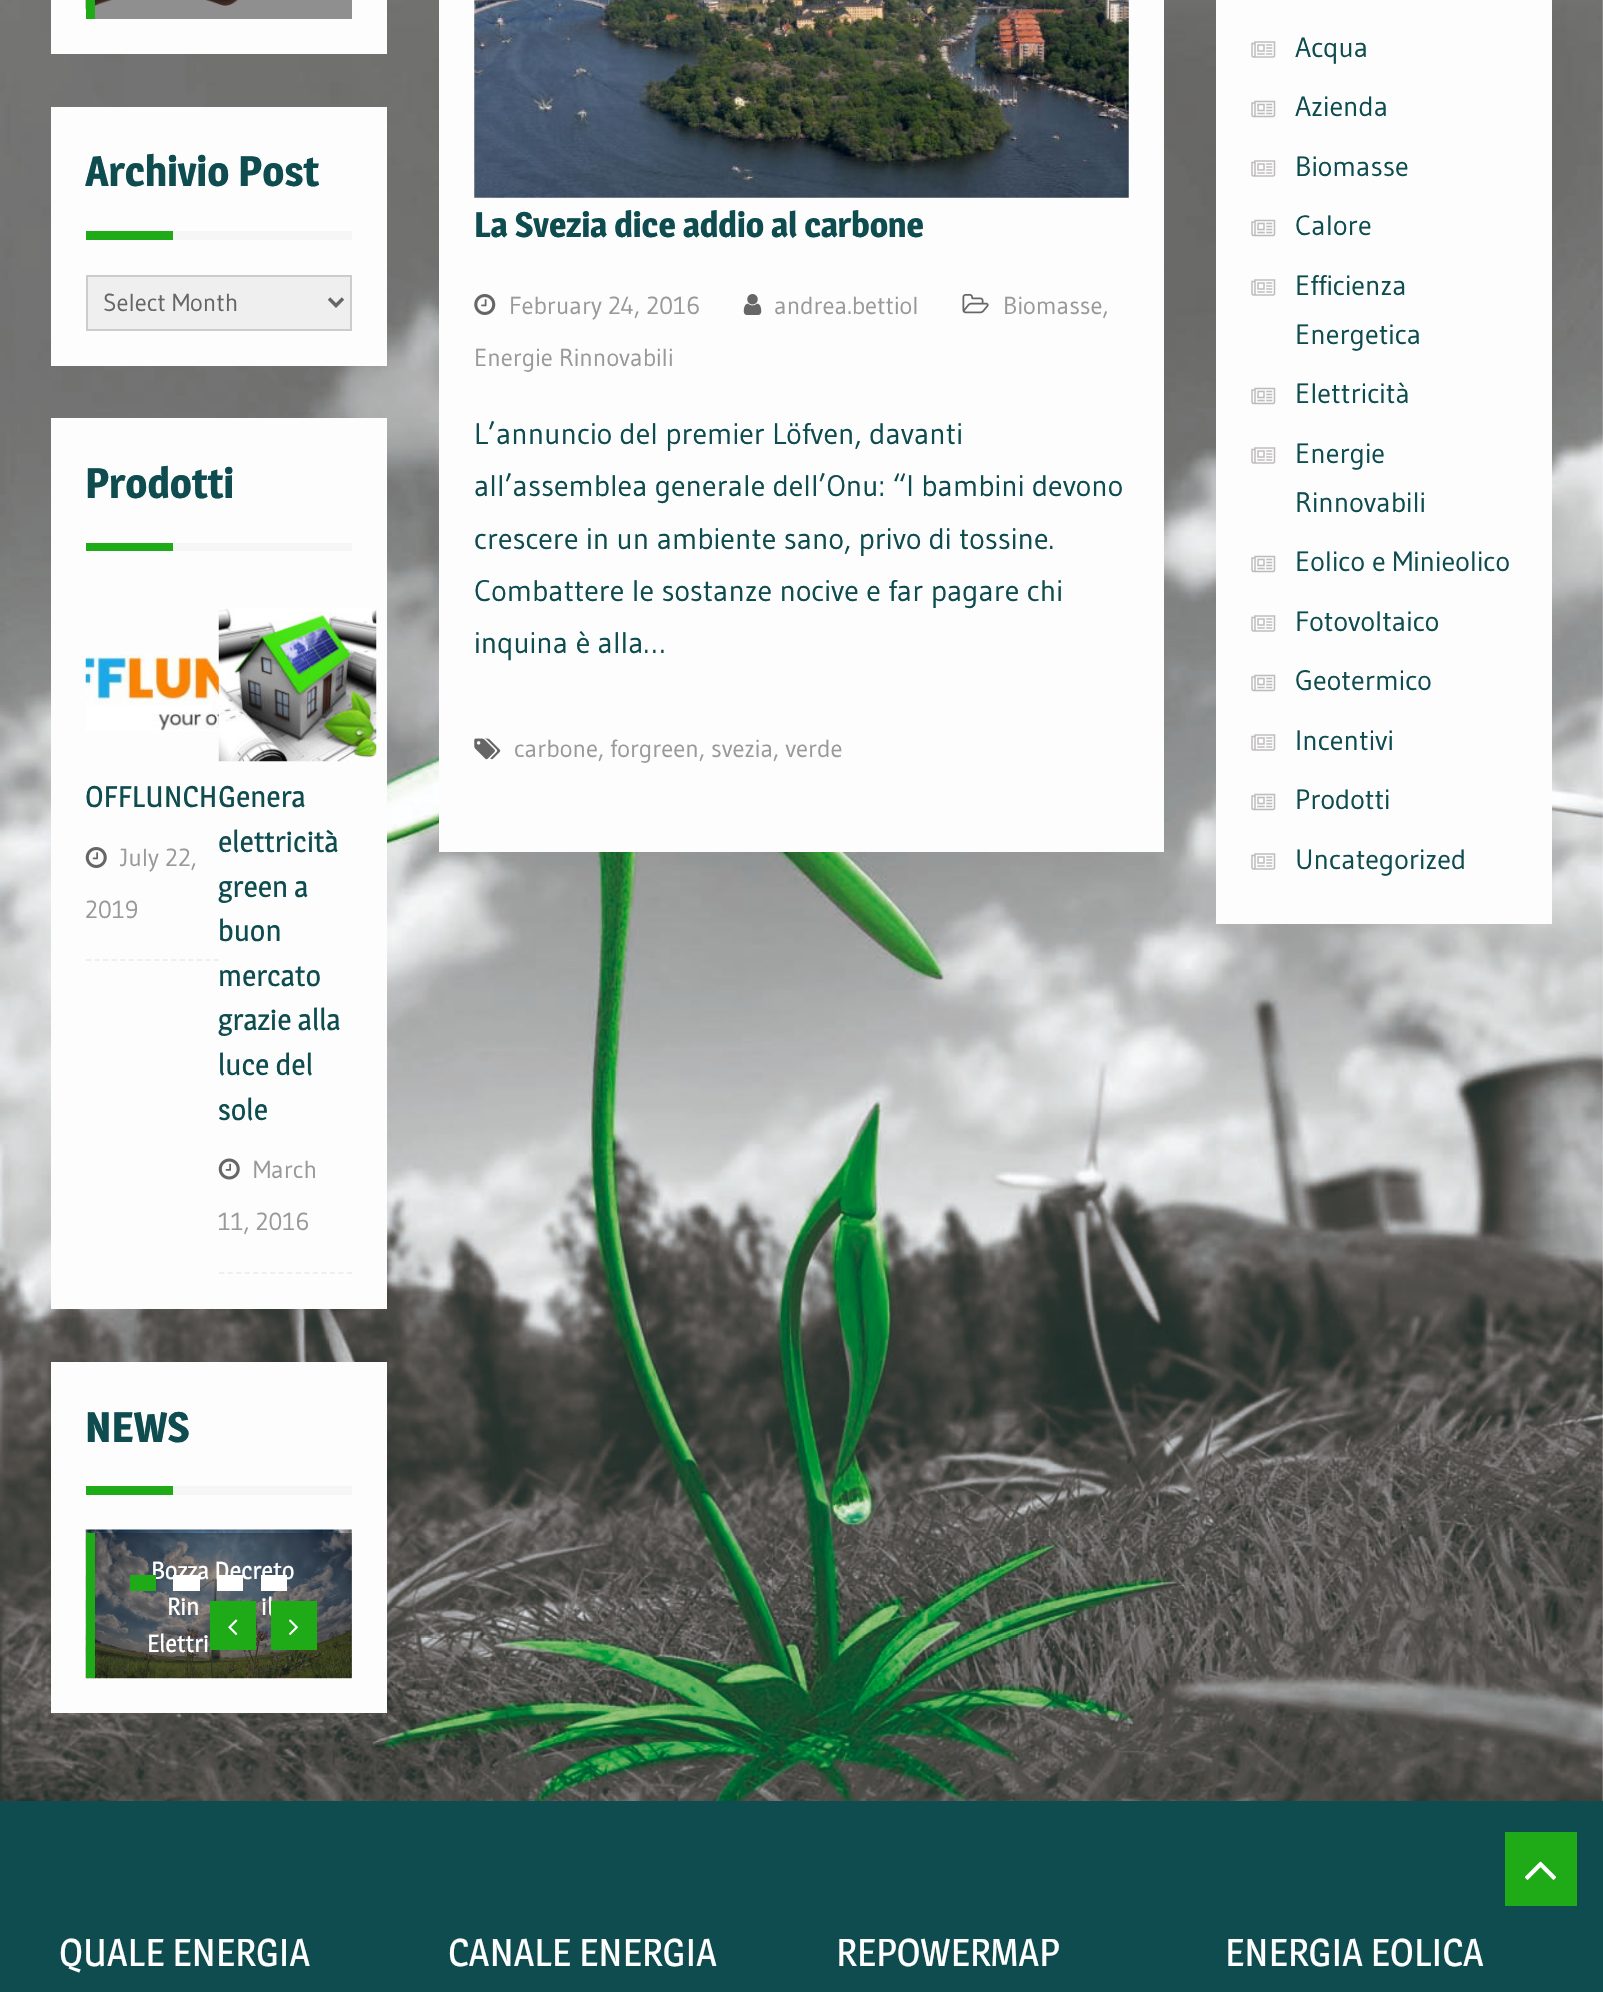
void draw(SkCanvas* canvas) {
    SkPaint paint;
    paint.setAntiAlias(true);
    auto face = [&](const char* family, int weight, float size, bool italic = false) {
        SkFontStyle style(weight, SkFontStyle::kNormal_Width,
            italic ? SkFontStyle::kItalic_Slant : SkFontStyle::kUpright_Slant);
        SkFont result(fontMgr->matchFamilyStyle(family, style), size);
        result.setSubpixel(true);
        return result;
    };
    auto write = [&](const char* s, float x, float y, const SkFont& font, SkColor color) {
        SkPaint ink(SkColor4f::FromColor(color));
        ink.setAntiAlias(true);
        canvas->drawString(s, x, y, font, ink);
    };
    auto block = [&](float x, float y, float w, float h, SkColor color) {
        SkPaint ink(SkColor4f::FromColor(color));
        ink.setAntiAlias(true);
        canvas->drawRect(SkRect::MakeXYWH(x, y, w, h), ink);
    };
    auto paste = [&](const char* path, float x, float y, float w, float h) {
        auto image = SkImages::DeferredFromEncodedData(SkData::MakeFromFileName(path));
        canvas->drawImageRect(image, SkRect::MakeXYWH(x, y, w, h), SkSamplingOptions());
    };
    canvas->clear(SK_ColorWHITE);
    paste("pic1.png", 0, 0, 1603, 1801);
    block(51, 0, 336, 54, SkColorSetRGB(253, 253, 253));
    paste("pic2.png", 85, 0, 153, 10);
    block(95, 0, 257, 19, SkColorSetARGB(128, 34, 34, 34));
    block(86, 0, 9, 19, SkColorSetRGB(31, 170, 24));
    block(51, 107, 336, 259, SkColorSetRGB(253, 253, 253));
    block(173, 231, 179, 9, SkColorSetRGB(246, 246, 246));
    auto kFont1 = face("Magra", 700, 42);
    write("Archivio Post", 85, 186, kFont1, SkColorSetRGB(14, 76, 79));
    block(86, 231, 87, 9, SkColorSetRGB(31, 170, 24));
    paint.setColor(SkColorSetRGB(239, 239, 239));
    canvas->drawRect(SkRect::MakeXYWH(87, 276, 264, 54), paint);
    paint.setStyle(SkPaint::kStroke_Style);
    paint.setStrokeWidth(2);
    paint.setColor(SkColorSetRGB(204, 204, 204));
    canvas->drawRect(SkRect::MakeXYWH(87, 276, 264, 54), paint);
    paint.setStrokeWidth(3.5f);
    paint.setColor(SkColorSetRGB(102, 102, 102));
    canvas->drawPath(SkPathBuilder().moveTo(329, 298.5f).lineTo(336, 305.5f).lineTo(343, 298.5f).detach(), paint);
    auto kFont2 = face("Gudea", 400, 24.5f);
    write("Select Month", 103, 311, kFont2, SkColorSetRGB(102, 102, 102));
    block(51, 418, 336, 891, SkColorSetRGB(253, 253, 253));
    block(173, 543, 179, 8, SkColorSetRGB(246, 246, 246));
    write("Prodotti", 85, 498, kFont1, SkColorSetRGB(14, 76, 79));
    block(86, 543, 87, 8, SkColorSetRGB(31, 170, 24));
    paint.setStrokeWidth(1.8f);
    paint.setColor(SkColorSetRGB(239, 239, 239));
    paint.setPathEffect(SkDashPathEffect::Make({{5.25f, 3.27f}}, 0));
    canvas->drawPath(SkPathBuilder().moveTo(86, 960).lineTo(219, 960).detach(), paint);
    paint.setPathEffect(nullptr);
    paste("pic3.png", 85, 654, 134, 77);
    auto kFont3 = face("Magra", 400, 29.75f);
    write("OFFLUNCH", 85, 807, kFont3, SkColorSetRGB(14, 76, 79));
    paste("pic4.png", 85, 847, 22, 21);
    write("July 22,", 120, 866, kFont2, SkColorSetRGB(153, 153, 153));
    write("2019", 85, 918, kFont2, SkColorSetRGB(153, 153, 153));
    paint.setPathEffect(SkDashPathEffect::Make({{5.25f, 3.27f}}, 0));
    canvas->drawPath(SkPathBuilder().moveTo(219, 1273).lineTo(352, 1273).detach(), paint);
    paint.setPathEffect(nullptr);
    paste("pic5.png", 218, 608, 159, 154);
    write("Genera", 218, 807, kFont3, SkColorSetRGB(14, 76, 79));
    write("elettricità", 218, 852, kFont3, SkColorSetRGB(14, 76, 79));
    write("green a", 218, 897, kFont3, SkColorSetRGB(14, 76, 79));
    write("buon", 218, 941, kFont3, SkColorSetRGB(14, 76, 79));
    write("mercato", 218, 986, kFont3, SkColorSetRGB(14, 76, 79));
    write("grazie alla", 218, 1030, kFont3, SkColorSetRGB(14, 76, 79));
    write("luce del", 218, 1075, kFont3, SkColorSetRGB(14, 76, 79));
    write("sole", 218, 1120, kFont3, SkColorSetRGB(14, 76, 79));
    paste("pic6.png", 218, 1158, 22, 22);
    write("March", 253, 1178, kFont2, SkColorSetRGB(153, 153, 153));
    write("11, 2016", 218, 1230, kFont2, SkColorSetRGB(153, 153, 153));
    block(51, 1362, 336, 351, SkColorSetRGB(253, 253, 253));
    block(173, 1486, 179, 9, SkColorSetRGB(246, 246, 246));
    write("NEWS", 85, 1442, kFont1, SkColorSetRGB(14, 76, 79));
    block(86, 1486, 87, 9, SkColorSetRGB(31, 170, 24));
    paste("pic7.png", 85, 1529, 267, 150);
    block(95, 1533, 257, 145, SkColorSetARGB(128, 34, 34, 34));
    block(86, 1533, 9, 145, SkColorSetRGB(31, 170, 24));
    auto kFont4 = face("Magra", 400, 24.5f);
    write("Bozza Decreto", 151, 1579, kFont4, SK_ColorWHITE);
    write("Rin", 167, 1615, kFont4, SK_ColorWHITE);
    write("il", 261, 1615, kFont4, SK_ColorWHITE);
    write("Elettri", 147, 1652, kFont4, SK_ColorWHITE);
    block(130, 1575, 26, 16, SkColorSetRGB(31, 170, 24));
    block(173, 1575, 27, 16, SK_ColorWHITE);
    block(217, 1575, 26, 16, SK_ColorWHITE);
    block(261, 1575, 26, 16, SK_ColorWHITE);
    block(210, 1601, 46, 49, SkColorSetRGB(31, 170, 24));
    paste("pic8.png", 228, 1619, 10, 16);
    block(271, 1601, 46, 49, SkColorSetRGB(31, 170, 24));
    paste("pic9.png", 289, 1619, 9, 16);
    block(439, 0, 725, 852, SkColorSetRGB(253, 253, 253));
    paste("pic10.png", 474, 0, 655, 198);
    auto kFont5 = face("Magra", 700, 35);
    write("La Svezia dice addio al carbone", 474, 237, kFont5, SkColorSetRGB(14, 76, 79));
    paste("pic11.png", 962, 294, 27, 20);
    write("Biomasse,", 1003, 314, kFont2, SkColorSetRGB(153, 153, 153));
    write("Energie Rinnovabili", 474, 366, kFont2, SkColorSetRGB(153, 153, 153));
    paste("pic12.png", 474, 294, 22, 21);
    write("February 24, 2016", 509, 314, kFont2, SkColorSetRGB(153, 153, 153));
    paste("pic13.png", 743, 294, 19, 21);
    write("andrea.bettiol", 774, 314, kFont2, SkColorSetRGB(153, 153, 153));
    auto kFont6 = face("Gudea", 400, 29.75f);
    write("L’annuncio del premier Löfven, davanti", 474, 444, kFont6, SkColorSetRGB(14, 76, 79));
    write("all’assemblea generale dell’Onu: “I bambini devono", 474, 496, kFont6, SkColorSetRGB(14, 76, 79));
    write("crescere in un ambiente sano, privo di tossine.", 474, 549, kFont6, SkColorSetRGB(14, 76, 79));
    write("Combattere le sostanze nocive e far pagare chi", 474, 601, kFont6, SkColorSetRGB(14, 76, 79));
    write("inquina è alla…", 474, 653, kFont6, SkColorSetRGB(14, 76, 79));
    paste("pic14.png", 474, 738, 27, 22);
    write("carbone, forgreen, svezia, verde", 514, 757, kFont2, SkColorSetRGB(153, 153, 153));
    block(1216, 0, 336, 924, SkColorSetRGB(253, 253, 253));
    paste("pic15.png", 1251, 41, 25, 17);
    auto kFont7 = face("Gudea", 400, 28);
    write("Acqua", 1295, 57, kFont7, SkColorSetRGB(14, 76, 79));
    paste("pic16.png", 1251, 100, 25, 18);
    write("Azienda", 1295, 116, kFont7, SkColorSetRGB(14, 76, 79));
    paste("pic15.png", 1251, 160, 25, 17);
    write("Biomasse", 1295, 176, kFont7, SkColorSetRGB(14, 76, 79));
    paste("pic16.png", 1251, 219, 25, 18);
    write("Calore", 1295, 235, kFont7, SkColorSetRGB(14, 76, 79));
    paste("pic15.png", 1251, 279, 25, 17);
    write("Efficienza", 1295, 295, kFont7, SkColorSetRGB(14, 76, 79));
    write("Energetica", 1295, 344, kFont7, SkColorSetRGB(14, 76, 79));
    paste("pic16.png", 1251, 387, 25, 18);
    write("Elettricità", 1295, 403, kFont7, SkColorSetRGB(14, 76, 79));
    paste("pic15.png", 1251, 447, 25, 17);
    write("Energie", 1295, 463, kFont7, SkColorSetRGB(14, 76, 79));
    write("Rinnovabili", 1295, 512, kFont7, SkColorSetRGB(14, 76, 79));
    paste("pic16.png", 1251, 555, 25, 18);
    write("Eolico e Minieolico", 1295, 571, kFont7, SkColorSetRGB(14, 76, 79));
    paste("pic15.png", 1251, 615, 25, 17);
    write("Fotovoltaico", 1295, 631, kFont7, SkColorSetRGB(14, 76, 79));
    paste("pic16.png", 1251, 674, 25, 18);
    write("Geotermico", 1295, 690, kFont7, SkColorSetRGB(14, 76, 79));
    paste("pic15.png", 1251, 734, 25, 17);
    write("Incentivi", 1295, 750, kFont7, SkColorSetRGB(14, 76, 79));
    paste("pic16.png", 1251, 793, 25, 18);
    write("Prodotti", 1295, 809, kFont7, SkColorSetRGB(14, 76, 79));
    paste("pic15.png", 1251, 853, 25, 17);
    write("Uncategorized", 1295, 869, kFont7, SkColorSetRGB(14, 76, 79));
    block(0, 1801, 1603, 191, SkColorSetRGB(14, 76, 79));
    auto kFont8 = face("Magra", 400, 38.5f);
    write("QUALE ENERGIA", 59, 1966, kFont8, SK_ColorWHITE);
    write("CANALE ENERGIA", 448, 1966, kFont8, SK_ColorWHITE);
    write("REPOWERMAP", 836, 1966, kFont8, SK_ColorWHITE);
    write("ENERGIA EOLICA", 1225, 1966, kFont8, SK_ColorWHITE);
    block(1505, 1832, 72, 74, SkColorSetRGB(31, 170, 24));
    paste("pic17.png", 1524, 1861, 33, 19);
}
